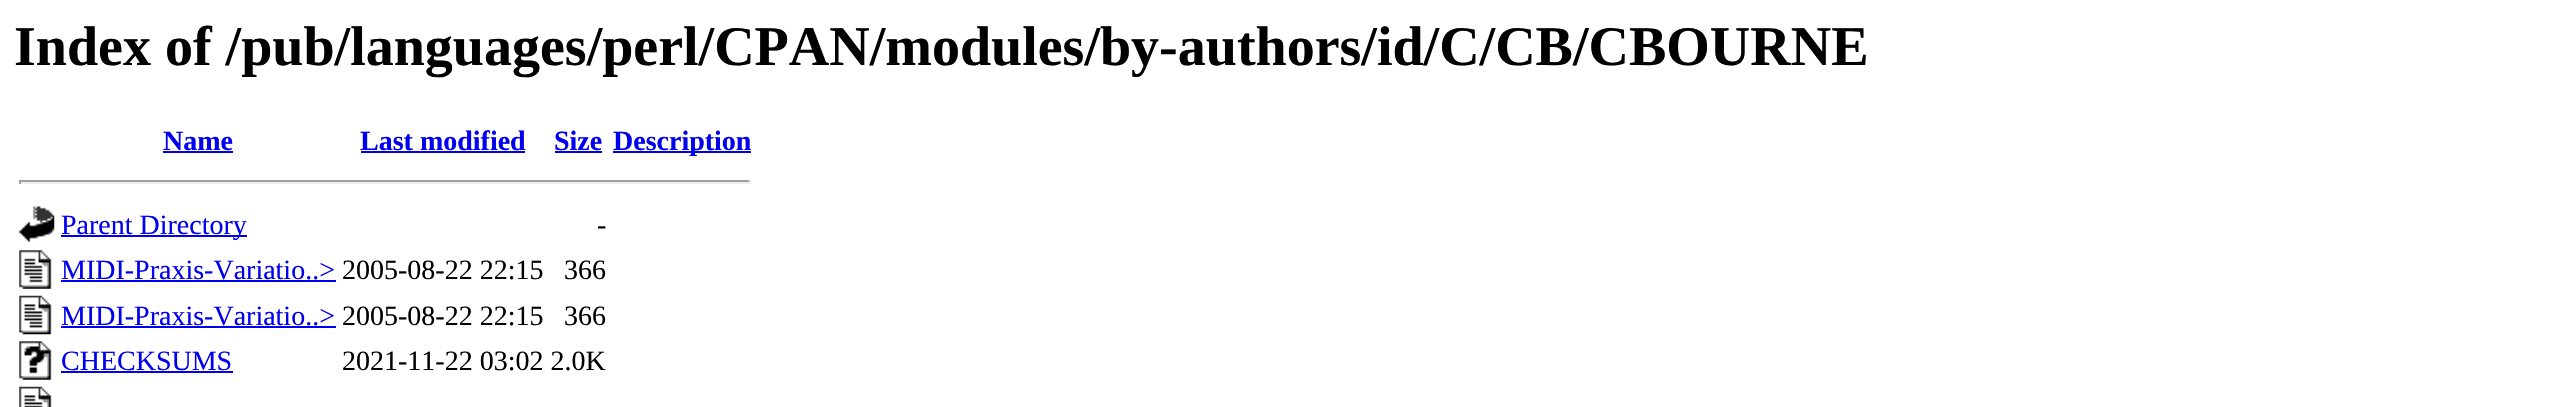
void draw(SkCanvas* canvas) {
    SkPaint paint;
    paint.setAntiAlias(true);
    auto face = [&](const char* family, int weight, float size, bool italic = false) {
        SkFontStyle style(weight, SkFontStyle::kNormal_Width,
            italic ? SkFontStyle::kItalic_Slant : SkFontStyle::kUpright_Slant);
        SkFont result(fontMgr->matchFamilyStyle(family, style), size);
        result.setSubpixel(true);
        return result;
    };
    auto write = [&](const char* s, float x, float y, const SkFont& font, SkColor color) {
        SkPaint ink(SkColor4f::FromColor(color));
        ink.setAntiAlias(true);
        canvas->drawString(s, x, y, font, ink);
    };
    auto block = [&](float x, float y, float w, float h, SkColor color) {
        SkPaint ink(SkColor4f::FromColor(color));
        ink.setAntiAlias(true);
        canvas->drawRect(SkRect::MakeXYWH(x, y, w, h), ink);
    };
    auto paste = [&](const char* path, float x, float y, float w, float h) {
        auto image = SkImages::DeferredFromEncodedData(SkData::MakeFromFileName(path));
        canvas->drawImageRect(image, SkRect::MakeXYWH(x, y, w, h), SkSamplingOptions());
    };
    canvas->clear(SK_ColorWHITE);
    auto kFont1 = face("Liberation Serif", 700, 56);
    write("Index of /pub/languages/perl/CPAN/modules/by-authors/id/C/CB/CBOURNE", 14, 65, kFont1, SK_ColorBLACK);
    auto kFont2 = face("Liberation Serif", 700, 28);
    write("Name", 163, 150, kFont2, SkColorSetRGB(0, 0, 238));
    block(163, 151, 70, 2, SkColorSetRGB(0, 0, 238));
    write("Last modified", 360, 150, kFont2, SkColorSetRGB(0, 0, 238));
    block(361, 151, 164, 2, SkColorSetRGB(0, 0, 238));
    write("Size", 554, 150, kFont2, SkColorSetRGB(0, 0, 238));
    block(555, 151, 47, 2, SkColorSetRGB(0, 0, 238));
    block(613, 151, 138, 2, SkColorSetRGB(0, 0, 238));
    write("Description", 613, 150, kFont2, SkColorSetRGB(0, 0, 238));
    block(19, 180, 732, 2, SkColorSetRGB(159, 159, 159));
    block(749, 180, 2, 4, SkColorSetRGB(238, 238, 238));
    block(19, 182, 732, 2, SkColorSetRGB(238, 238, 238));
    block(19, 180, 2, 4, SkColorSetRGB(159, 159, 159));
    paste("pic1.png", 19, 206, 36, 36);
    block(61, 235, 186, 2, SkColorSetRGB(0, 0, 238));
    auto kFont3 = face("Liberation Serif", 400, 28);
    write("Parent Directory", 61, 234, kFont3, SkColorSetRGB(0, 0, 238));
    write("-", 597, 234, kFont3, SK_ColorBLACK);
    paste("pic2.png", 19, 250, 33, 39);
    write("MIDI-Praxis-Variatio..>", 61, 279, kFont3, SkColorSetRGB(0, 0, 238));
    block(61, 280, 275, 2, SkColorSetRGB(0, 0, 238));
    write("2005-08-22 22:15", 342, 279, kFont3, SK_ColorBLACK);
    write("366", 564, 279, kFont3, SK_ColorBLACK);
    paste("pic3.png", 19, 295, 33, 40);
    write("MIDI-Praxis-Variatio..>", 61, 325, kFont3, SkColorSetRGB(0, 0, 238));
    block(61, 326, 275, 2, SkColorSetRGB(0, 0, 238));
    write("2005-08-22 22:15", 342, 325, kFont3, SK_ColorBLACK);
    write("366", 564, 325, kFont3, SK_ColorBLACK);
    paste("pic4.png", 19, 341, 33, 39);
    write("CHECKSUMS", 61, 370, kFont3, SkColorSetRGB(0, 0, 238));
    block(61, 371, 172, 2, SkColorSetRGB(0, 0, 238));
    write("2021-11-22 03:02 2.0K", 342, 370, kFont3, SK_ColorBLACK);
    paste("pic5.png", 19, 386, 33, 21);
}
